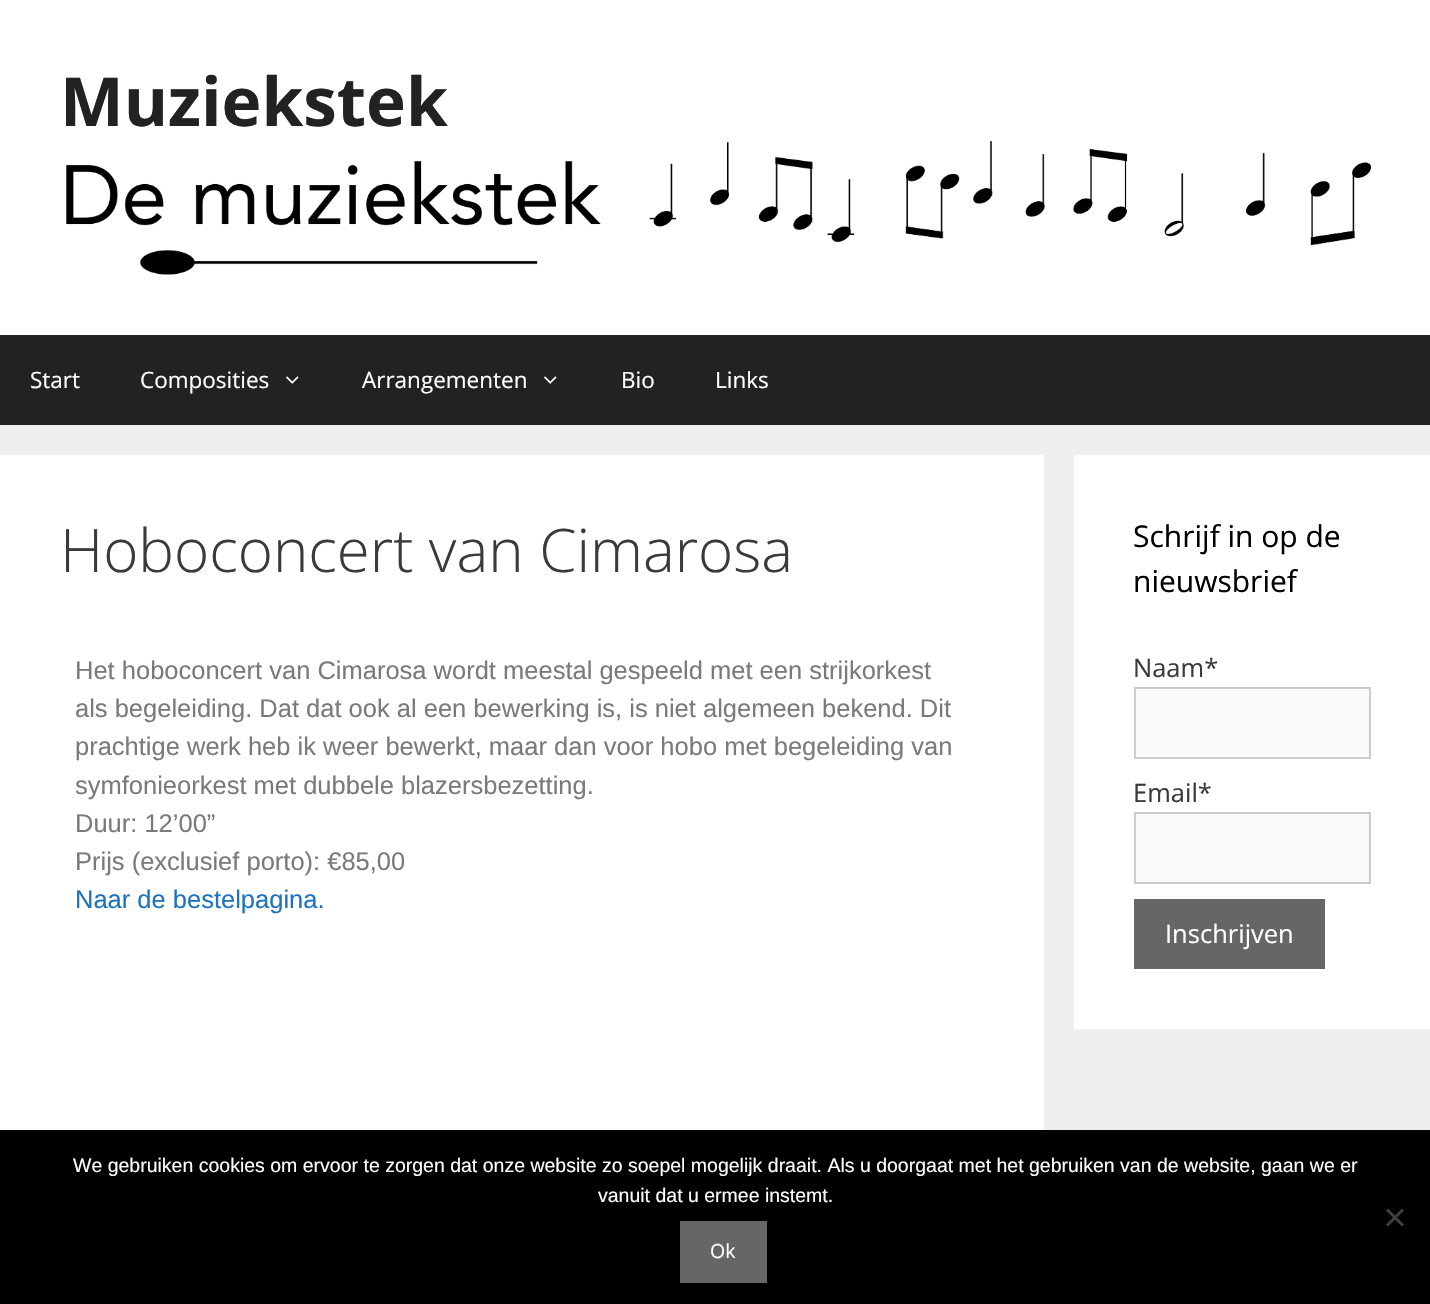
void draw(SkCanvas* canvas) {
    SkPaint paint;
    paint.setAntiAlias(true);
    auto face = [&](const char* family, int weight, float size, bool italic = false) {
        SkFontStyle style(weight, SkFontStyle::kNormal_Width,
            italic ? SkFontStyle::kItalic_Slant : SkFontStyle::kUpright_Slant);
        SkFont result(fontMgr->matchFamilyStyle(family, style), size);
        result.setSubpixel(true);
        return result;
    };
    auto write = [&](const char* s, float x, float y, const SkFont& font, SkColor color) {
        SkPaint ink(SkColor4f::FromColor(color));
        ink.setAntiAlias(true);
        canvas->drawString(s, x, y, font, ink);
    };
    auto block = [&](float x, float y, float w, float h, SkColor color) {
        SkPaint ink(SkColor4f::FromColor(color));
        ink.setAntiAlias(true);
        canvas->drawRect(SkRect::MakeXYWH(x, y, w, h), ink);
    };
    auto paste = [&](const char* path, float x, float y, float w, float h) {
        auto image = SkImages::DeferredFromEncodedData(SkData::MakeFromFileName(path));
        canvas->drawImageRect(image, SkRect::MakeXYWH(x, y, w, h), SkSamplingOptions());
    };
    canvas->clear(SkColorSetRGB(239, 239, 239));
    block(0, 0, 1430, 335, SK_ColorWHITE);
    auto kFont1 = face("Open Sans", 700, 67.5f);
    write("Muziekstek", 60, 126, kFont1, SkColorSetRGB(34, 34, 34));
    paste("pic1.png", 66, 141, 1305, 134);
    block(0, 335, 1430, 90, SkColorSetRGB(34, 34, 34));
    auto kFont2 = face("Open Sans", 400, 22.5f);
    write("Start", 30, 388, kFont2, SK_ColorWHITE);
    write("Composities", 140, 388, kFont2, SK_ColorWHITE);
    paste("pic2.png", 286, 376, 13, 8);
    write("Arrangementen", 362, 388, kFont2, SK_ColorWHITE);
    paste("pic2.png", 544, 376, 13, 8);
    write("Bio", 621, 388, kFont2, SK_ColorWHITE);
    write("Links", 715, 388, kFont2, SK_ColorWHITE);
    block(0, 455, 1044, 675, SK_ColorWHITE);
    auto kFont3 = face("Open Sans", 300, 60);
    write("Hoboconcert van Cimarosa", 60, 572, kFont3, SkColorSetRGB(58, 58, 58));
    auto kFont4 = face("Liberation Sans", 400, 25.5f);
    write("Het hoboconcert van Cimarosa wordt meestal gespeeld met een strijkorkest", 75, 679, kFont4, SkColorSetRGB(122, 122, 122));
    write("als begeleiding. Dat dat ook al een bewerking is, is niet algemeen bekend. Dit", 75, 717, kFont4, SkColorSetRGB(122, 122, 122));
    write("prachtige werk heb ik weer bewerkt, maar dan voor hobo met begeleiding van", 75, 755, kFont4, SkColorSetRGB(122, 122, 122));
    write("symfonieorkest met dubbele blazersbezetting.", 75, 794, kFont4, SkColorSetRGB(122, 122, 122));
    write("Duur: 12’00”", 75, 832, kFont4, SkColorSetRGB(122, 122, 122));
    write("Prijs (exclusief porto): €85,00", 75, 870, kFont4, SkColorSetRGB(122, 122, 122));
    write("Naar de bestelpagina.", 75, 908, kFont4, SkColorSetRGB(30, 115, 190));
    block(1074, 455, 356, 574, SK_ColorWHITE);
    auto kFont5 = face("Open Sans", 400, 30);
    write("Schrijf in op de", 1133, 547, kFont5, SK_ColorBLACK);
    write("nieuwsbrief", 1133, 592, kFont5, SK_ColorBLACK);
    auto kFont6 = face("Open Sans", 400, 25.5f);
    write("Naam*", 1133, 677, kFont6, SkColorSetRGB(58, 58, 58));
    paint.setColor(SkColorSetRGB(250, 250, 250));
    canvas->drawRect(SkRect::MakeXYWH(1135, 688, 235, 70), paint);
    paint.setStyle(SkPaint::kStroke_Style);
    paint.setStrokeWidth(2);
    paint.setColor(SkColorSetRGB(204, 204, 204));
    canvas->drawRect(SkRect::MakeXYWH(1135, 688, 235, 70), paint);
    write("Email*", 1133, 802, kFont6, SkColorSetRGB(58, 58, 58));
    paint.setStyle(SkPaint::kFill_Style);
    paint.setColor(SkColorSetRGB(250, 250, 250));
    canvas->drawRect(SkRect::MakeXYWH(1135, 813, 235, 70), paint);
    paint.setStyle(SkPaint::kStroke_Style);
    paint.setColor(SkColorSetRGB(204, 204, 204));
    canvas->drawRect(SkRect::MakeXYWH(1135, 813, 235, 70), paint);
    block(1134, 899, 191, 70, SkColorSetRGB(102, 102, 102));
    write("Inschrijven", 1165, 943, kFont6, SK_ColorWHITE);
    block(0, 1130, 1430, 174, SK_ColorBLACK);
    auto kFont7 = face("Liberation Sans", 400, 19.5f);
    write("We gebruiken cookies om ervoor te zorgen dat onze website zo soepel mogelijk draait. Als u doorgaat met het gebruiken van de website, gaan we er", 73, 1172, kFont7, SK_ColorWHITE);
    write("vanuit dat u ermee instemt.", 598, 1202, kFont7, SK_ColorWHITE);
    paint.setStyle(SkPaint::kFill_Style);
    paint.setColor(SkColorSetRGB(64, 64, 64));
    canvas->drawPath(SkPathBuilder().moveTo(1402, 1208.5f).lineTo(1404, 1210.5f).lineTo(1388, 1226.5f).lineTo(1386, 1224.5f).close().detach(), paint);
    canvas->drawPath(SkPathBuilder().moveTo(1386, 1210.5f).lineTo(1388, 1208.5f).lineTo(1404, 1224.5f).lineTo(1402, 1226.5f).close().detach(), paint);
    block(680, 1221, 87, 62, SkColorSetRGB(102, 102, 102));
    auto kFont8 = face("Open Sans", 400, 19.5f);
    write("Ok", 710, 1258, kFont8, SK_ColorWHITE);
}
